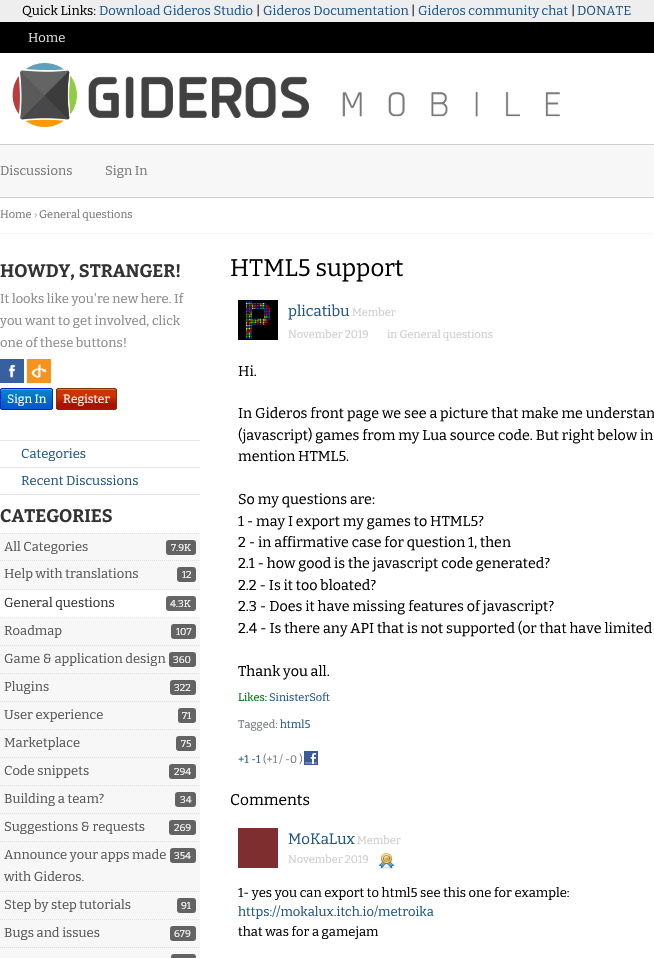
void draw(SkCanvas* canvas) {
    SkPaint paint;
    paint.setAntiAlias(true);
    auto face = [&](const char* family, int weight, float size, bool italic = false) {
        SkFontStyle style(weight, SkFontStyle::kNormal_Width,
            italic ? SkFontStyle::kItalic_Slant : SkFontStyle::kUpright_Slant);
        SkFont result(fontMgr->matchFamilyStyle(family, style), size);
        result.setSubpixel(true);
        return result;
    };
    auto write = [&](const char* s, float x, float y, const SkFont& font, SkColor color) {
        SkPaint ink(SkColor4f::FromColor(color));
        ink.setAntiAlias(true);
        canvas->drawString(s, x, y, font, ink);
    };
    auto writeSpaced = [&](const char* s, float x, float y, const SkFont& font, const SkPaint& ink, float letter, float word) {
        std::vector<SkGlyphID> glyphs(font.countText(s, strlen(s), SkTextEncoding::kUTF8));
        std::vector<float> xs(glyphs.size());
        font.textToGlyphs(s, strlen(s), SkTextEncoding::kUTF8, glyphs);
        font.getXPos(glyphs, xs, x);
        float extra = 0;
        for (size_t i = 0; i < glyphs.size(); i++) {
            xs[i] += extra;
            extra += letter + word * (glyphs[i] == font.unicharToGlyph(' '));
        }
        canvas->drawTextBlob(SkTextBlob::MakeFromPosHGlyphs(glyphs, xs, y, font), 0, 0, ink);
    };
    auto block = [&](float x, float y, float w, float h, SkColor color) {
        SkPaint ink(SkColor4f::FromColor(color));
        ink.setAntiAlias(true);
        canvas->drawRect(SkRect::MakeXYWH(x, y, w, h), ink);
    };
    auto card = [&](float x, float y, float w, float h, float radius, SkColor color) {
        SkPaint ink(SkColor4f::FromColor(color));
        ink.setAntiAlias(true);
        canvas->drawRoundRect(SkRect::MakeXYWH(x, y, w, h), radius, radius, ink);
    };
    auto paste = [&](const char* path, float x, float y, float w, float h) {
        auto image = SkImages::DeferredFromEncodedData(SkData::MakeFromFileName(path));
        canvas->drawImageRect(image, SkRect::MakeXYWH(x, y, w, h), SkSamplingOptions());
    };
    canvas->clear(SK_ColorWHITE);
    block(0, 0, 654, 22, SkColorSetRGB(238, 238, 238));
    auto kFont1 = face("Bitter", 400, 13);
    write("Quick Links:", 22, 15, kFont1, SK_ColorBLACK);
    write("Download Gideros Studio", 99, 15, kFont1, SkColorSetRGB(29, 86, 137));
    write("|", 256, 15, kFont1, SK_ColorBLACK);
    write("Gideros Documentation", 263, 15, kFont1, SkColorSetRGB(29, 86, 137));
    write("|", 411, 15, kFont1, SK_ColorBLACK);
    write("Gideros community chat", 418, 15, kFont1, SkColorSetRGB(29, 86, 137));
    write("|", 571, 15, kFont1, SK_ColorBLACK);
    write("DONATE", 577, 15, kFont1, SkColorSetRGB(29, 86, 137));
    block(0, 22, 654, 31, SK_ColorBLACK);
    write("Home", 28, 42, kFont1, SkColorSetRGB(221, 221, 221));
    paste("pic1.png", 10, 63, 550, 64);
    block(0, 145, 654, 52, SkColorSetRGB(247, 247, 247));
    block(0, 144, 654, 1, SkColorSetRGB(208, 208, 208));
    block(0, 197, 654, 1, SkColorSetRGB(208, 208, 208));
    write("Discussions", 0, 175, kFont1, SkColorSetRGB(119, 119, 119));
    write("Sign In", 105, 175, kFont1, SkColorSetRGB(119, 119, 119));
    paint.setStyle(SkPaint::kStroke_Style);
    paint.setStrokeWidth(1);
    paint.setColor(SkColorSetRGB(238, 238, 238));
    paint.setPathEffect(SkDashPathEffect::Make({{1, 1}}, 0));
    canvas->drawPath(SkPathBuilder().moveTo(0, 233.5f).lineTo(654, 233.5f).detach(), paint);
    paint.setPathEffect(nullptr);
    auto kFont2 = face("Bitter", 400, 11);
    write("Home", 0, 218, kFont2, SkColorSetRGB(119, 119, 119));
    write("›", 34, 218, kFont2, SkColorSetRGB(170, 170, 170));
    write("General questions", 39, 218, kFont2, SkColorSetRGB(119, 119, 119));
    auto kFont3 = face("Bitter", 700, 18);
    paint.setStyle(SkPaint::kFill_Style);
    paint.setColor(SkColorSetRGB(51, 51, 51));
    writeSpaced("HOWDY, STRANGER!", 0, 277, kFont3, paint, 0, 1);
    write("It looks like you're new here. If", 0, 303, kFont1, SkColorSetRGB(136, 136, 136));
    write("you want to get involved, click", 0, 325, kFont1, SkColorSetRGB(136, 136, 136));
    write("one of these buttons!", 0, 347, kFont1, SkColorSetRGB(136, 136, 136));
    block(0, 359, 24, 24, SkColorSetRGB(54, 96, 158));
    paste("pic2.png", 8, 364, 8, 14);
    block(27, 359, 24, 24, SkColorSetRGB(247, 146, 28));
    paste("pic3.png", 31, 364, 16, 14);
    canvas->save();
    canvas->clipPath(SkPathBuilder().moveTo(2, 388).lineTo(51, 388).cubicTo(52, 388, 53, 389, 53, 390).lineTo(53, 408).cubicTo(53, 409, 52, 410, 51, 410).lineTo(2, 410).cubicTo(1, 410, 0, 409, 0, 408).lineTo(0, 390).cubicTo(0, 389, 1, 388, 2, 388).close().detach(), true);
    {
        const SkColor colors[] = {SkColorSetRGB(0, 85, 204), SkColorSetRGB(0, 136, 204)};
        const float stops[] = {0, 1};
        const SkPoint ends[] = {{1, 409}, {1, 389}};
        paint.setShader(SkGradientShader::MakeLinear(ends, colors, stops, 2, SkTileMode::kClamp));
        paint.setAlpha(255);
    }
    canvas->drawRect(SkRect::MakeXYWH(0, 389, 53, 20), paint);
    canvas->restore();
    paint.setShader(nullptr);
    paint.setColor(SkColorSetARGB(77, 255, 255, 255));
    canvas->drawPath(SkPathBuilder(SkPathFillType::kEvenOdd).moveTo(2, 390).lineTo(51, 390).lineTo(52, 391).cubicTo(52, 387, 47, 389, 43, 389).lineTo(10, 389).cubicTo(4, 389, 1, 387, 1, 392).close().moveTo(52, 408).lineTo(52, 408).close().moveTo(1, 408).lineTo(1, 408).close().detach(), paint);
    paint.setStyle(SkPaint::kStroke_Style);
    paint.setColor(SkColorSetRGB(0, 34, 204));
    canvas->drawRoundRect(SkRect::MakeXYWH(0.5f, 388.5f, 52, 21), 1.5f, 1.5f, paint);
    auto kFont4 = face("Bitter", 400, 12);
    write("Sign In", 7, 403, kFont4, SK_ColorWHITE);
    canvas->save();
    canvas->clipPath(SkPathBuilder().moveTo(58, 388).lineTo(115, 388).cubicTo(116, 388, 117, 389, 117, 390).lineTo(117, 408).cubicTo(117, 409, 116, 410, 115, 410).lineTo(58, 410).cubicTo(57, 410, 56, 409, 56, 408).lineTo(56, 390).cubicTo(56, 389, 57, 388, 58, 388).close().detach(), true);
    paint.setStyle(SkPaint::kFill_Style);
    {
        const SkColor colors[] = {SkColorSetRGB(170, 17, 0), SkColorSetRGB(204, 51, 0)};
        const float stops[] = {0.25f, 0.63f};
        const SkPoint ends[] = {{57, 409}, {57, 389}};
        paint.setShader(SkGradientShader::MakeLinear(ends, colors, stops, 2, SkTileMode::kClamp));
        paint.setAlpha(255);
    }
    canvas->drawRect(SkRect::MakeXYWH(56, 389, 61, 20), paint);
    canvas->restore();
    paint.setShader(nullptr);
    paint.setColor(SkColorSetARGB(77, 255, 255, 255));
    canvas->drawPath(SkPathBuilder().moveTo(58, 390).lineTo(115, 390).cubicTo(116, 390, 116, 390, 116, 391).cubicTo(116, 386, 109, 389, 106, 389).lineTo(68, 389).cubicTo(64, 389, 57, 386, 57, 391).cubicTo(57, 390, 57, 390, 58, 390).close().detach(), paint);
    paint.setStyle(SkPaint::kStroke_Style);
    paint.setColor(SkColorSetRGB(118, 52, 7));
    canvas->drawRoundRect(SkRect::MakeXYWH(56.5f, 388.5f, 60, 21), 1.5f, 1.5f, paint);
    write("Register", 63, 403, kFont4, SK_ColorWHITE);
    block(0, 440, 200, 1, SkColorSetRGB(230, 230, 230));
    block(0, 467, 200, 1, SkColorSetRGB(230, 230, 230));
    write("Categories", 21, 458, kFont1, SkColorSetRGB(29, 86, 137));
    block(0, 494, 200, 1, SkColorSetRGB(230, 230, 230));
    write("Recent Discussions", 21, 485, kFont1, SkColorSetRGB(29, 86, 137));
    write("CATEGORIES", 0, 522, kFont3, SkColorSetRGB(51, 51, 51));
    block(0, 533, 200, 57, SkColorSetRGB(247, 247, 247));
    paint.setColor(SkColorSetRGB(222, 222, 222));
    paint.setPathEffect(SkDashPathEffect::Make({{1, 1}}, 0));
    canvas->drawPath(SkPathBuilder().moveTo(0, 533.5f).lineTo(200, 533.5f).detach(), paint);
    paint.setPathEffect(nullptr);
    paint.setPathEffect(SkDashPathEffect::Make({{1, 1}}, 0));
    canvas->drawPath(SkPathBuilder().moveTo(0, 560.5f).lineTo(200, 560.5f).detach(), paint);
    paint.setPathEffect(nullptr);
    write("All Categories", 4, 551, kFont1, SkColorSetRGB(85, 85, 85));
    card(166, 540, 30, 15, 3, SkColorSetRGB(99, 99, 99));
    auto kFont5 = face("Bitter", 400, 10);
    write("7.9K", 171, 551, kFont5, SK_ColorWHITE);
    paint.setPathEffect(SkDashPathEffect::Make({{1, 1}}, 0));
    canvas->drawPath(SkPathBuilder().moveTo(0, 589.5f).lineTo(200, 589.5f).detach(), paint);
    paint.setPathEffect(nullptr);
    write("Help with translations", 4, 578, kFont1, SkColorSetRGB(85, 85, 85));
    card(177, 567, 19, 15, 3, SkColorSetRGB(99, 99, 99));
    write("12", 182, 578, kFont5, SK_ColorWHITE);
    paint.setColor(SkColorSetRGB(230, 230, 230));
    paint.setPathEffect(SkDashPathEffect::Make({{1, 1}}, 0));
    canvas->drawPath(SkPathBuilder().moveTo(0, 617.5f).lineTo(200, 617.5f).detach(), paint);
    paint.setPathEffect(nullptr);
    write("General questions", 4, 607, kFont1, SkColorSetRGB(51, 51, 51));
    card(166, 596, 30, 15, 3, SkColorSetRGB(102, 102, 102));
    write("4.3K", 170, 607, kFont5, SK_ColorWHITE);
    block(0, 618, 200, 340, SkColorSetRGB(247, 247, 247));
    paint.setColor(SkColorSetRGB(222, 222, 222));
    paint.setPathEffect(SkDashPathEffect::Make({{1, 1}}, 0));
    canvas->drawPath(SkPathBuilder().moveTo(0, 645.5f).lineTo(200, 645.5f).detach(), paint);
    paint.setPathEffect(nullptr);
    write("Roadmap", 4, 635, kFont1, SkColorSetRGB(85, 85, 85));
    card(171, 624, 25, 15, 3, SkColorSetRGB(99, 99, 99));
    write("107", 176, 635, kFont5, SK_ColorWHITE);
    paint.setPathEffect(SkDashPathEffect::Make({{1, 1}}, 0));
    canvas->drawPath(SkPathBuilder().moveTo(0, 673.5f).lineTo(200, 673.5f).detach(), paint);
    paint.setPathEffect(nullptr);
    write("Game & application design", 4, 663, kFont1, SkColorSetRGB(85, 85, 85));
    card(169, 652, 27, 15, 3, SkColorSetRGB(99, 99, 99));
    write("360", 173, 663, kFont5, SK_ColorWHITE);
    paint.setPathEffect(SkDashPathEffect::Make({{1, 1}}, 0));
    canvas->drawPath(SkPathBuilder().moveTo(0, 701.5f).lineTo(200, 701.5f).detach(), paint);
    paint.setPathEffect(nullptr);
    write("Plugins", 4, 691, kFont1, SkColorSetRGB(85, 85, 85));
    card(170, 680, 26, 15, 3, SkColorSetRGB(99, 99, 99));
    write("322", 174, 691, kFont5, SK_ColorWHITE);
    paint.setPathEffect(SkDashPathEffect::Make({{1, 1}}, 0));
    canvas->drawPath(SkPathBuilder().moveTo(0, 729.5f).lineTo(200, 729.5f).detach(), paint);
    paint.setPathEffect(nullptr);
    write("User experience", 4, 719, kFont1, SkColorSetRGB(85, 85, 85));
    card(178, 708, 18, 15, 3, SkColorSetRGB(99, 99, 99));
    write("71", 182, 719, kFont5, SK_ColorWHITE);
    paint.setPathEffect(SkDashPathEffect::Make({{1, 1}}, 0));
    canvas->drawPath(SkPathBuilder().moveTo(0, 757.5f).lineTo(200, 757.5f).detach(), paint);
    paint.setPathEffect(nullptr);
    write("Marketplace", 4, 747, kFont1, SkColorSetRGB(85, 85, 85));
    card(176, 736, 20, 15, 3, SkColorSetRGB(99, 99, 99));
    write("75", 181, 747, kFont5, SK_ColorWHITE);
    paint.setPathEffect(SkDashPathEffect::Make({{1, 1}}, 0));
    canvas->drawPath(SkPathBuilder().moveTo(0, 785.5f).lineTo(200, 785.5f).detach(), paint);
    paint.setPathEffect(nullptr);
    write("Code snippets", 4, 775, kFont1, SkColorSetRGB(85, 85, 85));
    card(169, 764, 27, 15, 3, SkColorSetRGB(99, 99, 99));
    write("294", 174, 775, kFont5, SK_ColorWHITE);
    paint.setPathEffect(SkDashPathEffect::Make({{1, 1}}, 0));
    canvas->drawPath(SkPathBuilder().moveTo(0, 813.5f).lineTo(200, 813.5f).detach(), paint);
    paint.setPathEffect(nullptr);
    write("Building a team?", 4, 803, kFont1, SkColorSetRGB(85, 85, 85));
    card(175, 792, 21, 15, 3, SkColorSetRGB(99, 99, 99));
    write("34", 180, 803, kFont5, SK_ColorWHITE);
    paint.setPathEffect(SkDashPathEffect::Make({{1, 1}}, 0));
    canvas->drawPath(SkPathBuilder().moveTo(0, 841.5f).lineTo(200, 841.5f).detach(), paint);
    paint.setPathEffect(nullptr);
    write("Suggestions & requests", 4, 831, kFont1, SkColorSetRGB(85, 85, 85));
    card(169, 820, 27, 15, 3, SkColorSetRGB(99, 99, 99));
    write("269", 174, 831, kFont5, SK_ColorWHITE);
    paint.setPathEffect(SkDashPathEffect::Make({{1, 1}}, 0));
    canvas->drawPath(SkPathBuilder().moveTo(0, 891.5f).lineTo(200, 891.5f).detach(), paint);
    paint.setPathEffect(nullptr);
    write("Announce your apps made", 4, 859, kFont1, SkColorSetRGB(85, 85, 85));
    card(170, 848, 26, 15, 3, SkColorSetRGB(99, 99, 99));
    write("354", 174, 859, kFont5, SK_ColorWHITE);
    write("with Gideros.", 4, 881, kFont1, SkColorSetRGB(85, 85, 85));
    paint.setPathEffect(SkDashPathEffect::Make({{1, 1}}, 0));
    canvas->drawPath(SkPathBuilder().moveTo(0, 919.5f).lineTo(200, 919.5f).detach(), paint);
    paint.setPathEffect(nullptr);
    write("Step by step tutorials", 4, 909, kFont1, SkColorSetRGB(85, 85, 85));
    card(177, 898, 19, 15, 3, SkColorSetRGB(99, 99, 99));
    write("91", 181, 909, kFont5, SK_ColorWHITE);
    paint.setPathEffect(SkDashPathEffect::Make({{1, 1}}, 0));
    canvas->drawPath(SkPathBuilder().moveTo(0, 947.5f).lineTo(200, 947.5f).detach(), paint);
    paint.setPathEffect(nullptr);
    write("Bugs and issues", 4, 937, kFont1, SkColorSetRGB(85, 85, 85));
    card(170, 926, 26, 15, 3, SkColorSetRGB(99, 99, 99));
    write("679", 174, 937, kFont5, SK_ColorWHITE);
    card(171, 954, 25, 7, 3, SkColorSetRGB(99, 99, 99));
    auto kFont6 = face("Bitter", 400, 24);
    write("HTML5 support", 230, 276, kFont6, SK_ColorBLACK);
    paste("pic4.png", 238, 300, 40, 40);
    auto kFont7 = face("Bitter", 400, 15);
    write("plicatibu", 288, 316, kFont7, SkColorSetRGB(29, 86, 137));
    write("Member", 352, 316, kFont2, SkColorSetRGB(204, 204, 204));
    write("November 2019", 288, 338, kFont2, SkColorSetRGB(204, 204, 204));
    write("in General questions", 387, 338, kFont2, SkColorSetRGB(204, 204, 204));
    auto kFont8 = face("Bitter", 400, 14.3f);
    write("Hi.", 238, 376, kFont8, SK_ColorBLACK);
    write("In Gideros front page we see a picture that make me understan", 238, 418, kFont8, SK_ColorBLACK);
    write("(javascript) games from my Lua source code. But right below in", 238, 440, kFont8, SK_ColorBLACK);
    write("mention HTML5.", 238, 461, kFont8, SK_ColorBLACK);
    write("So my questions are:", 238, 504, kFont8, SK_ColorBLACK);
    write("1 - may I export my games to HTML5?", 238, 526, kFont8, SK_ColorBLACK);
    write("2 - in affirmative case for question 1, then", 238, 547, kFont8, SK_ColorBLACK);
    write("2.1 - how good is the javascript code generated?", 238, 568, kFont8, SK_ColorBLACK);
    write("2.2 - Is it too bloated?", 238, 590, kFont8, SK_ColorBLACK);
    write("2.3 - Does it have missing features of javascript?", 238, 611, kFont8, SK_ColorBLACK);
    write("2.4 - Is there any API that is not supported (or that have limited", 238, 633, kFont8, SK_ColorBLACK);
    write("Thank you all.", 238, 676, kFont8, SK_ColorBLACK);
    write("Likes:", 238, 701, kFont2, SkColorSetRGB(0, 102, 0));
    write("SinisterSoft", 269, 701, kFont2, SkColorSetRGB(29, 86, 137));
    write("Tagged:", 238, 728, kFont2, SkColorSetRGB(112, 114, 124));
    write("html5", 280, 728, kFont2, SkColorSetRGB(29, 86, 137));
    write("+1 -1", 238, 763, kFont2, SkColorSetRGB(29, 86, 137));
    write("(+1 / -0 )", 263, 763, kFont2, SkColorSetRGB(119, 119, 119));
    paste("pic5.png", 304, 751, 14, 14);
    auto kFont9 = face("Bitter", 400, 15.5f);
    write("Comments", 230, 805, kFont9, SK_ColorBLACK);
    block(238, 828, 40, 40, SkColorSetRGB(126, 46, 47));
    write("MoKaLux", 288, 844, kFont7, SkColorSetRGB(29, 86, 137));
    write("Member", 357, 844, kFont2, SkColorSetRGB(204, 204, 204));
    write("November 2019", 288, 863, kFont2, SkColorSetRGB(204, 204, 204));
    paste("pic6.png", 379, 853, 15, 16);
    write("1- yes you can export to html5 see this one for example:", 238, 897, kFont1, SK_ColorBLACK);
    write("https://mokalux.itch.io/metroika", 238, 916, kFont1, SkColorSetRGB(29, 86, 137));
    write("that was for a gamejam", 238, 936, kFont1, SK_ColorBLACK);
}
